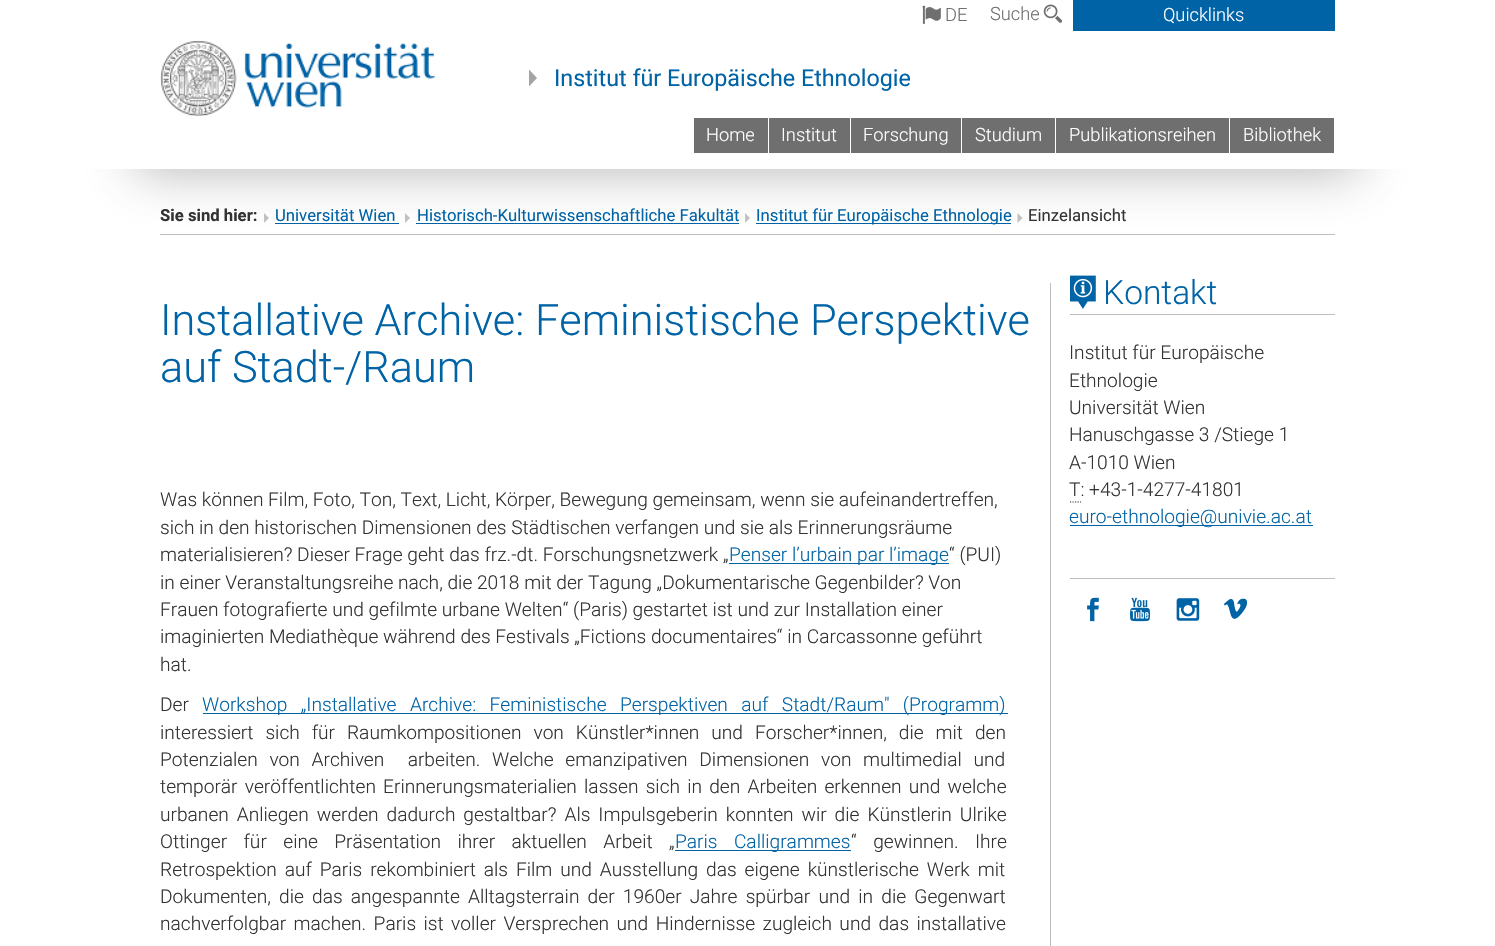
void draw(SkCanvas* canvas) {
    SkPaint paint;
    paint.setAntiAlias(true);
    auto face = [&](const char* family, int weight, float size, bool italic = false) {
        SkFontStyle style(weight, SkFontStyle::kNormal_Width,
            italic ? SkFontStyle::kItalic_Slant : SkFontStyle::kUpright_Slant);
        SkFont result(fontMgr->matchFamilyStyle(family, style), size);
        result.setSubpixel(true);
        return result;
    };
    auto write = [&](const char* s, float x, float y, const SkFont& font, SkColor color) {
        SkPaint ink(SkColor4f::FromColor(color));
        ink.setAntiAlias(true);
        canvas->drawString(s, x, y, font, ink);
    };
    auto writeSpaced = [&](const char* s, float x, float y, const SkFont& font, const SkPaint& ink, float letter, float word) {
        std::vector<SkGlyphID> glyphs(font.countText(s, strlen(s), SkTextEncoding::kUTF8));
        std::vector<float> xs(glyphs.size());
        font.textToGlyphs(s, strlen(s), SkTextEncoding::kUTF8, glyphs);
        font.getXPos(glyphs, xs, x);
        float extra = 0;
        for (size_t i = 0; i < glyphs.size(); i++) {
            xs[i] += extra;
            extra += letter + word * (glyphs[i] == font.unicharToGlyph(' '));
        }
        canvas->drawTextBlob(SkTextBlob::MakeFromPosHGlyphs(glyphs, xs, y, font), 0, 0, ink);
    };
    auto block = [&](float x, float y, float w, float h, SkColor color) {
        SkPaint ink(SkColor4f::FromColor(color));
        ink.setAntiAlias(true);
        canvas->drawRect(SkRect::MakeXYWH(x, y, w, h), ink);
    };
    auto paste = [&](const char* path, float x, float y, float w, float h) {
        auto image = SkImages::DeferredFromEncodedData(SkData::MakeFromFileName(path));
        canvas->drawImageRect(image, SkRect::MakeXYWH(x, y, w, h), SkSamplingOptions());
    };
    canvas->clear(SK_ColorWHITE);
    paint.setColor(SkColorSetRGB(194, 194, 194));
    canvas->drawPath(SkPathBuilder().moveTo(264, 213).lineTo(264, 223).lineTo(269, 218).close().detach(), paint);
    block(275, 223, 124, 1, SkColorSetRGB(0, 99, 166));
    canvas->drawPath(SkPathBuilder().moveTo(405, 213).lineTo(405, 223).lineTo(410, 218).close().detach(), paint);
    block(416, 223, 323, 1, SkColorSetRGB(0, 99, 166));
    canvas->drawPath(SkPathBuilder().moveTo(745, 213).lineTo(745, 223).lineTo(750, 218).close().detach(), paint);
    block(756, 223, 255, 1, SkColorSetRGB(0, 99, 166));
    canvas->drawPath(SkPathBuilder().moveTo(1017.5f, 213).lineTo(1017.5f, 223).lineTo(1022.5f, 218).close().detach(), paint);
    block(160, 234, 1175, 1, SkColorSetRGB(189, 189, 189));
    canvas->save();
    canvas->clipPath(SkPathBuilder(SkPathFillType::kEvenOdd).moveTo(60, 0).lineTo(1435, 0).lineTo(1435, 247).lineTo(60, 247).close().moveTo(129, 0).lineTo(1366, 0).lineTo(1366, 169).lineTo(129, 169).close().detach(), true);
    paint.setColor(SkColorSetARGB(102, 70, 70, 70));
    paint.setMaskFilter(SkMaskFilter::MakeBlur(kNormal_SkBlurStyle, 25));
    canvas->drawRect(SkRect::MakeXYWH(136, 18, 1223, 153), paint);
    paint.setMaskFilter(nullptr);
    canvas->restore();
    paint.setColor(SK_ColorWHITE);
    canvas->drawPath(SkPathBuilder().moveTo(69, 0).lineTo(69, 169).lineTo(1306, 169).lineTo(129, 169).lineTo(129, 0).close().detach(), paint);
    canvas->drawPath(SkPathBuilder().moveTo(189, 169).lineTo(1426, 169).lineTo(1426, 0).lineTo(1366, 0).lineTo(1366, 169).close().detach(), paint);
    paste("pic1.png", 922, 5, 19, 19);
    auto kFont1 = face("Roboto", 300, 18.25f);
    write("DE", 945, 21, kFont1, SkColorSetRGB(111, 111, 111));
    write("Suche", 990, 20, kFont1, SkColorSetRGB(111, 111, 111));
    paste("pic2.png", 1043, 4, 19, 19);
    block(1073, 0, 262, 31, SkColorSetRGB(0, 99, 166));
    write("Quicklinks", 1163, 21, kFont1, SK_ColorWHITE);
    paste("pic3.png", 160, 40, 275, 76);
    paint.setColor(SkColorSetRGB(164, 164, 164));
    canvas->drawPath(SkPathBuilder().moveTo(529, 69.5f).lineTo(529, 86.5f).lineTo(537, 78).close().detach(), paint);
    auto kFont2 = face("Roboto", 400, 23.3f);
    write("Institut für Europäische Ethnologie", 554, 86, kFont2, SkColorSetRGB(0, 99, 166));
    block(694, 118, 74, 35, SkColorSetRGB(111, 111, 111));
    write("Home", 706, 141, kFont1, SK_ColorWHITE);
    block(769, 118, 81, 35, SkColorSetRGB(111, 111, 111));
    write("Institut", 781, 141, kFont1, SK_ColorWHITE);
    block(851, 118, 110, 35, SkColorSetRGB(111, 111, 111));
    write("Forschung", 863, 141, kFont1, SK_ColorWHITE);
    block(962, 118, 93, 35, SkColorSetRGB(111, 111, 111));
    write("Studium", 975, 141, kFont1, SK_ColorWHITE);
    block(1056, 118, 173, 35, SkColorSetRGB(111, 111, 111));
    write("Publikationsreihen", 1069, 141, kFont1, SK_ColorWHITE);
    block(1230, 118, 104, 35, SkColorSetRGB(111, 111, 111));
    write("Bibliothek", 1243, 141, kFont1, SK_ColorWHITE);
    auto kFont3 = face("Roboto", 700, 16.7f);
    write("Sie sind hier:", 160, 221, kFont3, SkColorSetRGB(51, 51, 51));
    auto kFont4 = face("Roboto", 400, 16.7f);
    write("Universität Wien", 275, 221, kFont4, SkColorSetRGB(0, 99, 166));
    write("Historisch-Kulturwissenschaftliche Fakultät", 417, 221, kFont4, SkColorSetRGB(0, 99, 166));
    write("Institut für Europäische Ethnologie", 756, 221, kFont4, SkColorSetRGB(0, 99, 166));
    write("Einzelansicht", 1028, 221, kFont4, SkColorSetRGB(51, 51, 51));
    block(1050, 283, 1, 663, SkColorSetRGB(189, 189, 189));
    auto kFont5 = face("Roboto", 300, 43.3f);
    write("Installative Archive: Feministische Perspektive", 160, 335, kFont5, SkColorSetRGB(0, 99, 166));
    write("auf Stadt-/Raum", 160, 382, kFont5, SkColorSetRGB(0, 99, 166));
    auto kFont6 = face("Roboto", 300, 19.15f);
    write("Was können Film, Foto, Ton, Text, Licht, Körper, Bewegung gemeinsam, wenn sie aufeinandertreffen,", 160, 506, kFont6, SkColorSetRGB(51, 51, 51));
    write("sich in den historischen Dimensionen des Städtischen verfangen und sie als Erinnerungsräume", 160, 534, kFont6, SkColorSetRGB(51, 51, 51));
    write("materialisieren? Dieser Frage geht das frz.-dt. Forschungsnetzwerk „", 160, 561, kFont6, SkColorSetRGB(51, 51, 51));
    block(729, 563, 220, 1, SkColorSetRGB(0, 99, 166));
    write("Penser l’urbain par l’image", 729, 561, kFont6, SkColorSetRGB(0, 99, 166));
    write("“ (PUI)", 949, 561, kFont6, SkColorSetRGB(51, 51, 51));
    write("in einer Veranstaltungsreihe nach, die 2018 mit der Tagung „Dokumentarische Gegenbilder? Von", 160, 589, kFont6, SkColorSetRGB(51, 51, 51));
    write("Frauen fotografierte und gefilmte urbane Welten“ (Paris) gestartet ist und zur Installation einer", 160, 616, kFont6, SkColorSetRGB(51, 51, 51));
    write("imaginierten Mediathèque während des Festivals „Fictions documentaires“ in Carcassonne geführt", 160, 643, kFont6, SkColorSetRGB(51, 51, 51));
    write("hat.", 160, 671, kFont6, SkColorSetRGB(51, 51, 51));
    write("Der", 160, 711, kFont6, SkColorSetRGB(51, 51, 51));
    block(203, 713, 805, 1, SkColorSetRGB(0, 99, 166));
    paint.setColor(SkColorSetRGB(0, 99, 166));
    writeSpaced("Workshop „Installative Archive: Feministische Perspektiven auf Stadt/Raum\" (Programm)", 202, 711, kFont6, paint, 0, 8.75f);
    paint.setColor(SkColorSetRGB(51, 51, 51));
    writeSpaced("interessiert sich für Raumkompositionen von Künstler*innen und Forscher*innen, die mit den", 160, 739, kFont6, paint, 0, 7.25f);
    writeSpaced("Potenzialen von Archiven  arbeiten. Welche emanzipativen Dimensionen von multimedial und", 160, 766, kFont6, paint, 0, 7);
    writeSpaced("temporär veröffentlichten Erinnerungsmaterialien lassen sich in den Arbeiten erkennen und welche", 160, 793, kFont6, paint, 0, 2.5f);
    writeSpaced("urbanen Anliegen werden dadurch gestaltbar? Als Impulsgeberin konnten wir die Künstlerin Ulrike", 160, 821, kFont6, paint, 0, 3.25f);
    writeSpaced("Ottinger für eine Präsentation ihrer aktuellen Arbeit „", 160, 848, kFont6, paint, 0, 11.75f);
    block(675, 850, 176, 1, SkColorSetRGB(0, 99, 166));
    paint.setColor(SkColorSetRGB(0, 99, 166));
    writeSpaced("Paris Calligrammes", 675, 848, kFont6, paint, 0, 11.75f);
    paint.setColor(SkColorSetRGB(51, 51, 51));
    writeSpaced("“ gewinnen. Ihre", 851, 848, kFont6, paint, 0, 11.75f);
    writeSpaced("Retrospektion auf Paris rekombiniert als Film und Ausstellung das eigene künstlerische Werk mit", 160, 876, kFont6, paint, 0, 3.25f);
    writeSpaced("Dokumenten, die das angespannte Alltagsterrain der 1960er Jahre spürbar und in die Gegenwart", 160, 903, kFont6, paint, 0, 3.5f);
    writeSpaced("nachverfolgbar machen. Paris ist voller Versprechen und Hindernisse zugleich und das installative", 160, 930, kFont6, paint, 0, 2.75f);
    block(1070, 314, 265, 1, SkColorSetRGB(189, 189, 189));
    paste("pic4.png", 1070, 275, 26, 34);
    auto kFont7 = face("Roboto", 300, 33.5f);
    write("Kontakt", 1103, 304, kFont7, SkColorSetRGB(0, 99, 166));
    write("Institut für Europäische", 1069, 359, kFont6, SkColorSetRGB(51, 51, 51));
    write("Ethnologie", 1069, 387, kFont6, SkColorSetRGB(51, 51, 51));
    write("Universität Wien", 1069, 414, kFont6, SkColorSetRGB(51, 51, 51));
    write("Hanuschgasse 3 /Stiege 1", 1069, 441, kFont6, SkColorSetRGB(51, 51, 51));
    write("A-1010 Wien", 1069, 469, kFont6, SkColorSetRGB(51, 51, 51));
    write("T: +43-1-4277-41801", 1069, 496, kFont6, SkColorSetRGB(51, 51, 51));
    paint.setStyle(SkPaint::kStroke_Style);
    paint.setStrokeWidth(1.2f);
    paint.setPathEffect(SkDashPathEffect::Make({{1.25f, 1.25f}}, 0));
    canvas->drawPath(SkPathBuilder().moveTo(1070, 502).lineTo(1081, 502).detach(), paint);
    paint.setPathEffect(nullptr);
    block(1070, 525, 243, 1, SkColorSetRGB(0, 99, 166));
    write("euro-ethnologie@univie.ac.at", 1069, 523, kFont6, SkColorSetRGB(0, 99, 166));
    block(1070, 578, 265, 1, SkColorSetRGB(189, 189, 189));
    paste("pic5.png", 1087, 597, 12, 25);
    paste("pic6.png", 1130, 597, 21, 25);
    paste("pic7.png", 1176, 598, 24, 23);
    paste("pic8.png", 1223, 598, 25, 21);
}
